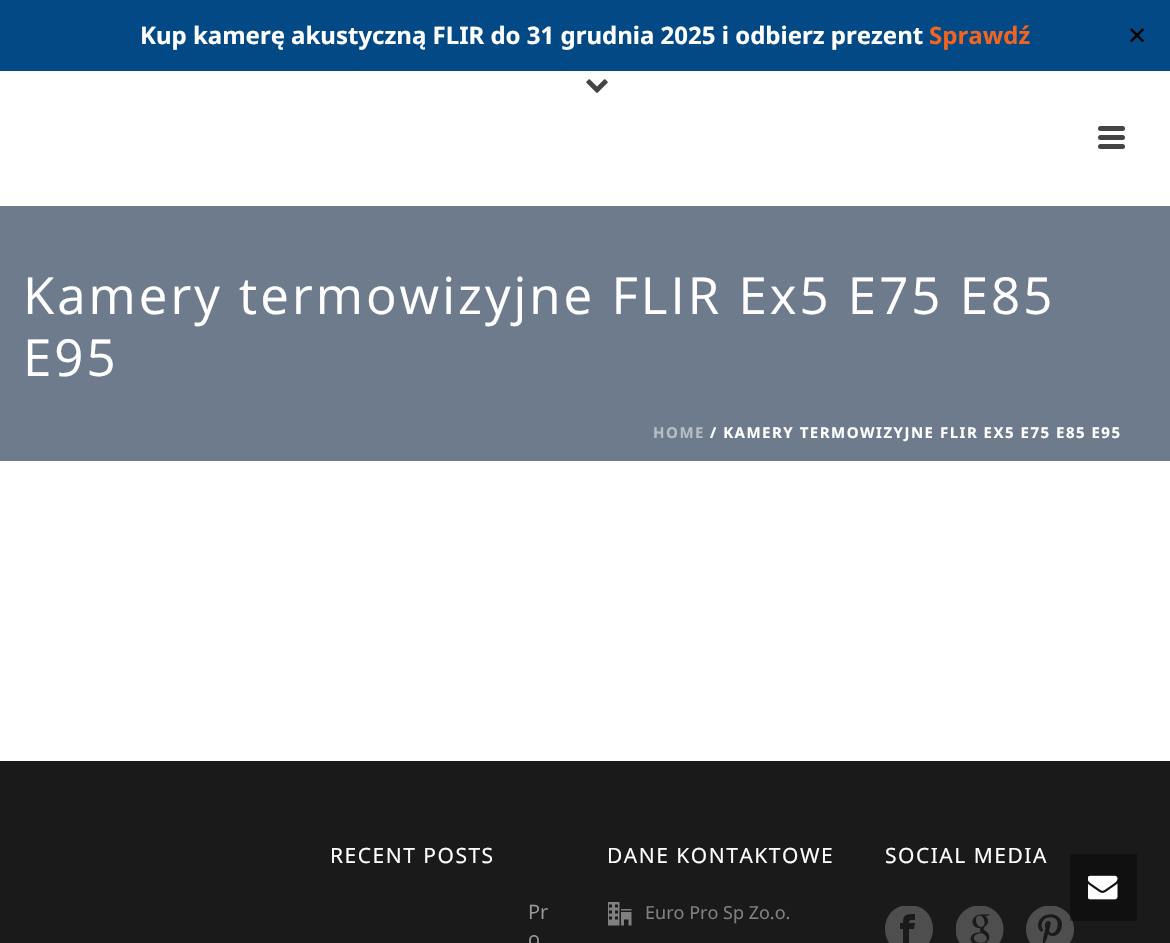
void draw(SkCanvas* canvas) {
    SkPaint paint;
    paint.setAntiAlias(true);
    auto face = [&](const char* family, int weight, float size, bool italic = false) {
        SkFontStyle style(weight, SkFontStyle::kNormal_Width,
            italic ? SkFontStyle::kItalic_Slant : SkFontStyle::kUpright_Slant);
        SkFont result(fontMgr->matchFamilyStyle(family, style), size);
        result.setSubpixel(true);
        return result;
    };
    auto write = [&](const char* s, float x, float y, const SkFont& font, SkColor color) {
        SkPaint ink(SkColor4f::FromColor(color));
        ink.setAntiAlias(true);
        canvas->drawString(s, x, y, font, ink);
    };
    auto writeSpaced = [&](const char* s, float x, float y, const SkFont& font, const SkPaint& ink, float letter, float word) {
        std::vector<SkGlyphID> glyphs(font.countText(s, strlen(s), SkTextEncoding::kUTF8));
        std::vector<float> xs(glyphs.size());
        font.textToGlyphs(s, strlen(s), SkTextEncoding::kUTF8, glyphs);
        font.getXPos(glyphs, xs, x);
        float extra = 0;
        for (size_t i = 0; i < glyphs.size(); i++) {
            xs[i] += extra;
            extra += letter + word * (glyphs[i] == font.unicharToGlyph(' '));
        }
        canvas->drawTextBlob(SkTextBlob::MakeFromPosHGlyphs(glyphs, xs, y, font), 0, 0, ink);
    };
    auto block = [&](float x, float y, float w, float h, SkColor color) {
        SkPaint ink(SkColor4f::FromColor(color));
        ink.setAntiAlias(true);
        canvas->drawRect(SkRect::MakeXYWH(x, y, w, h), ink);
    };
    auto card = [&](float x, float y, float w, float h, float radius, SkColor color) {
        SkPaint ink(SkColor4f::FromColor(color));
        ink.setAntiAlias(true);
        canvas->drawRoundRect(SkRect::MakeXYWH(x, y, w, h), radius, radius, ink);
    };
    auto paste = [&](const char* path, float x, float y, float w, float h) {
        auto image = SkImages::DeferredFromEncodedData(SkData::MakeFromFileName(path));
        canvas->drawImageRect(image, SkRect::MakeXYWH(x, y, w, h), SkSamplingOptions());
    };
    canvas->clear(SK_ColorWHITE);
    block(0, 0, 1170, 71, SkColorSetRGB(2, 73, 133));
    auto kFont1 = face("Noto Sans", 700, 24);
    write("Kup kamerę akustyczną FLIR do 31 grudnia 2025 i odbierz prezent", 140, 44, kFont1, SK_ColorWHITE);
    auto kFont2 = face("Open Sans", 700, 24);
    write("Sprawdź", 929, 44, kFont2, SkColorSetRGB(241, 101, 33));
    auto kFont3 = face("DejaVu Sans", 400, 24);
    write("✕", 1127, 44, kFont3, SK_ColorBLACK);
    paste("pic1.png", 586, 79, 22, 14);
    card(1098, 126, 27, 5, 2.5f, SkColorSetRGB(68, 68, 68));
    card(1098, 135, 27, 5, 2.5f, SkColorSetRGB(68, 68, 68));
    card(1098, 144, 27, 5, 2.5f, SkColorSetRGB(68, 68, 68));
    block(0, 206, 1170, 255, SkColorSetRGB(109, 123, 141));
    auto kFont4 = face("Open Sans", 400, 51);
    paint.setColor(SK_ColorWHITE);
    writeSpaced("Kamery termowizyjne FLIR Ex5 E75 E85", 23, 314, kFont4, paint, 3, 0);
    writeSpaced("E95", 23, 376, kFont4, paint, 3, 0);
    auto kFont5 = face("Open Sans", 700, 15);
    paint.setColor(SkColorSetRGB(182, 189, 198));
    writeSpaced("HOME", 653, 438, kFont5, paint, 1.5f, 0);
    auto kFont6 = face("Noto Sans", 700, 15);
    paint.setColor(SK_ColorWHITE);
    writeSpaced("/ KAMERY TERMOWIZYJNE FLIR EX5 E75 E85 E95", 710, 438, kFont6, paint, 1.5f, 0);
    block(0, 761, 1170, 182, SkColorSetRGB(26, 26, 26));
    auto kFont7 = face("Noto Sans", 400, 21);
    writeSpaced("RECENT POSTS", 330, 863, kFont7, paint, 1.5f, 0);
    auto kFont8 = face("Open Sans", 400, 20);
    write("Pr", 528, 919, kFont8, SkColorSetRGB(153, 153, 153));
    write("o", 528, 946, kFont8, SkColorSetRGB(153, 153, 153));
    writeSpaced("DANE KONTAKTOWE", 607, 863, kFont7, paint, 1.5f, 0);
    paste("pic2.png", 608, 902, 24, 24);
    auto kFont9 = face("Noto Sans", 400, 18);
    write("Euro Pro Sp Zo.o.", 645, 919, kFont9, SkColorSetRGB(128, 128, 128));
    writeSpaced("SOCIAL MEDIA", 885, 863, kFont7, paint, 1.5f, 0);
    canvas->save();
    canvas->clipRect(SkRect::MakeXYWH(885, 906, 48, 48));
    paint.setColor(SkColorSetRGB(78, 78, 78));
    canvas->drawPath(SkPathBuilder().moveTo(909, 905).cubicTo(877, 905, 877, 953, 909, 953).cubicTo(941, 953, 941, 905, 909, 905).close().moveTo(915, 920).cubicTo(911, 920, 909, 919, 909, 923).lineTo(915, 923).lineTo(914, 929).lineTo(909, 929).lineTo(909, 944).lineTo(903, 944).lineTo(903, 929).lineTo(900, 929).lineTo(900, 923).lineTo(903, 923).cubicTo(903, 914, 906, 914, 915, 914).close().detach(), paint);
    canvas->restore();
    paste("pic3.png", 956, 906, 48, 37);
    paste("pic4.png", 1026, 906, 48, 37);
    block(1070, 854, 67, 67, SkColorSetARGB(102, 0, 0, 0));
    paste("pic5.png", 1088, 875, 30, 25);
}
